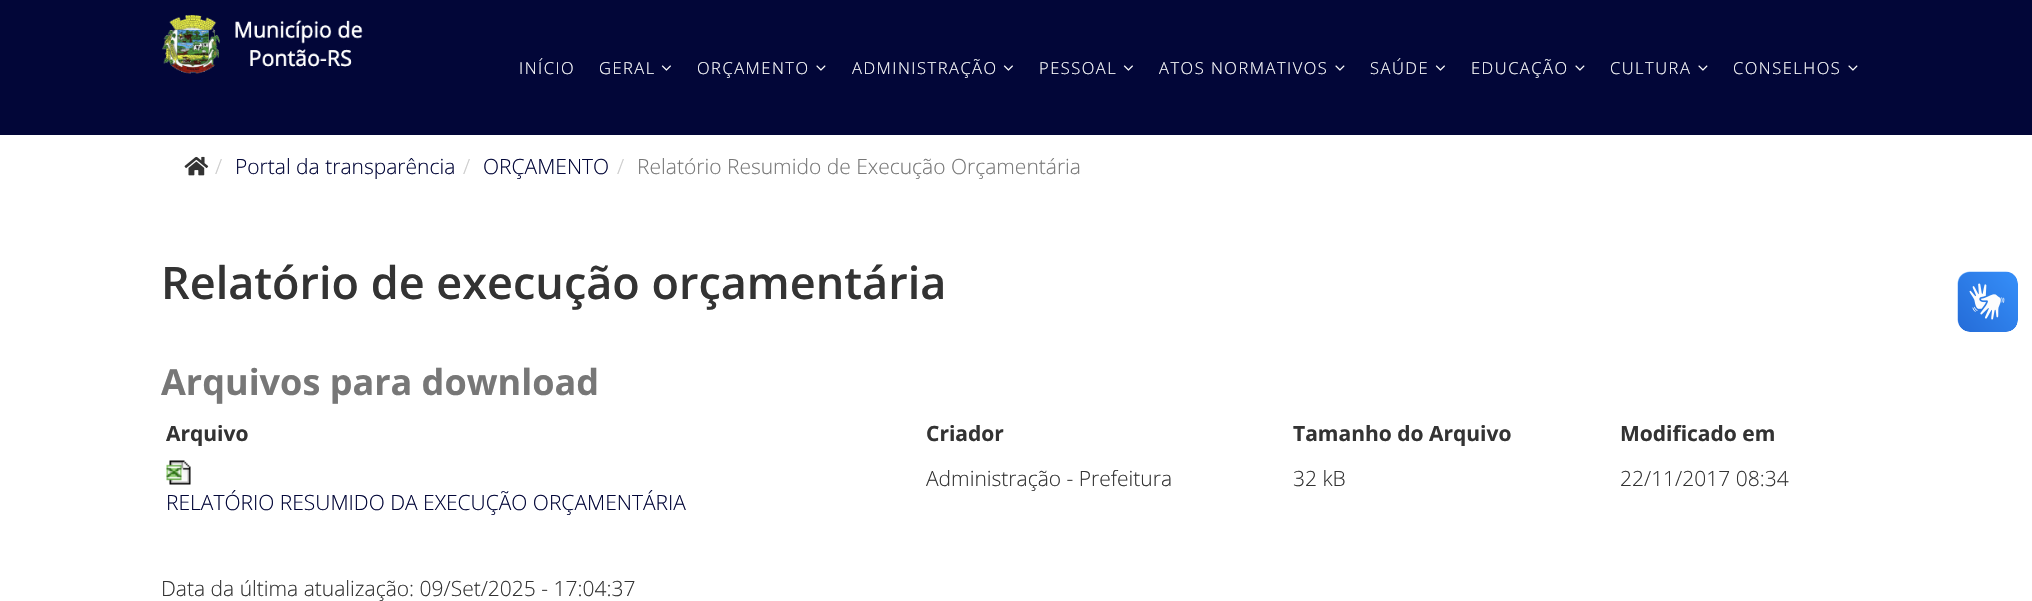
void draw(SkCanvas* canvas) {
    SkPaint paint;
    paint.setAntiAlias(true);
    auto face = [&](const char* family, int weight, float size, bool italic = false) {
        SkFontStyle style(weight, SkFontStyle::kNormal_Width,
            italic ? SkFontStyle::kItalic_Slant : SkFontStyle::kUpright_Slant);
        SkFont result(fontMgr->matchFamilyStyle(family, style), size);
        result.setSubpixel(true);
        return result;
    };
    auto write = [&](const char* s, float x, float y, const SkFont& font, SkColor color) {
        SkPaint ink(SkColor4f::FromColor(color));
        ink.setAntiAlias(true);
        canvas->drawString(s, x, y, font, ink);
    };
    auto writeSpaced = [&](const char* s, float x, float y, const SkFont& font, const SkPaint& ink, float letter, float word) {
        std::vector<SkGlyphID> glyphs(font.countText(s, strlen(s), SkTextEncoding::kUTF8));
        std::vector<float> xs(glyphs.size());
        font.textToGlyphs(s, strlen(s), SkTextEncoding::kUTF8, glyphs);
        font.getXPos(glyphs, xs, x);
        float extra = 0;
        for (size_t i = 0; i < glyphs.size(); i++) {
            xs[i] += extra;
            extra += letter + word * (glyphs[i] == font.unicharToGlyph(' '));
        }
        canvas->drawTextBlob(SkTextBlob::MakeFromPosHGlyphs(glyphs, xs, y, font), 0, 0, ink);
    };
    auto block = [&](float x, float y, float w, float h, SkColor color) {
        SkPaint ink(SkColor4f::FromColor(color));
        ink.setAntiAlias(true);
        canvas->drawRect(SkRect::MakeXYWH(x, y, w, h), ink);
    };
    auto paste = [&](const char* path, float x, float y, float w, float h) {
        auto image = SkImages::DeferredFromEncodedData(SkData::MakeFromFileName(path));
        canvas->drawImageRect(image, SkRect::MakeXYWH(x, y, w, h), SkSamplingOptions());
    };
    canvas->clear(SK_ColorWHITE);
    block(0, 0, 2032, 135, SkColorSetRGB(2, 6, 56));
    paste("pic1.png", 162, 15, 201, 59);
    auto kFont1 = face("Open Sans", 300, 16.5f);
    paint.setColor(SK_ColorWHITE);
    writeSpaced("INÍCIO", 519, 74, kFont1, paint, 1.5f, 0);
    writeSpaced("GERAL", 599, 74, kFont1, paint, 1.5f, 0);
    paste("pic2.png", 661, 65, 10, 6);
    writeSpaced("ORÇAMENTO", 697, 74, kFont1, paint, 1.5f, 0);
    paste("pic3.png", 816, 65, 10, 6);
    writeSpaced("ADMINISTRAÇÃO", 852, 74, kFont1, paint, 1.5f, 0);
    paste("pic2.png", 1003, 65, 10, 6);
    writeSpaced("PESSOAL", 1039, 74, kFont1, paint, 1.5f, 0);
    paste("pic2.png", 1123, 65, 10, 6);
    writeSpaced("ATOS NORMATIVOS", 1159, 74, kFont1, paint, 1.5f, 0);
    paste("pic3.png", 1335, 65, 10, 6);
    writeSpaced("SAÚDE", 1370, 74, kFont1, paint, 1.5f, 0);
    paste("pic2.png", 1435, 65, 10, 6);
    writeSpaced("EDUCAÇÃO", 1471, 74, kFont1, paint, 1.5f, 0);
    paste("pic3.png", 1575, 65, 10, 6);
    writeSpaced("CULTURA", 1610, 74, kFont1, paint, 1.5f, 0);
    paste("pic3.png", 1698, 65, 10, 6);
    writeSpaced("CONSELHOS", 1733, 74, kFont1, paint, 1.5f, 0);
    paste("pic3.png", 1848, 65, 10, 6);
    paste("pic4.png", 184, 156, 25, 20);
    auto kFont2 = face("Open Sans", 300, 21);
    write("/", 215, 174, kFont2, SkColorSetRGB(204, 204, 204));
    write("Portal da transparência", 235, 174, kFont2, SkColorSetRGB(2, 6, 56));
    write("/", 463, 174, kFont2, SkColorSetRGB(204, 204, 204));
    write("ORÇAMENTO", 483, 174, kFont2, SkColorSetRGB(2, 6, 56));
    write("/", 617, 174, kFont2, SkColorSetRGB(204, 204, 204));
    write("Relatório Resumido de Execução Orçamentária", 637, 174, kFont2, SkColorSetRGB(119, 119, 119));
    auto kFont3 = face("Open Sans", 600, 45);
    write("Relatório de execução orçamentária", 161, 299, kFont3, SkColorSetRGB(51, 51, 51));
    auto kFont4 = face("Open Sans", 700, 36);
    write("Arquivos para download", 161, 395, kFont4, SkColorSetRGB(119, 119, 119));
    auto kFont5 = face("Open Sans", 700, 21);
    write("Arquivo", 166, 441, kFont5, SkColorSetRGB(51, 51, 51));
    write("Criador", 926, 441, kFont5, SkColorSetRGB(51, 51, 51));
    write("Tamanho do Arquivo", 1293, 441, kFont5, SkColorSetRGB(51, 51, 51));
    write("Modificado em", 1620, 441, kFont5, SkColorSetRGB(51, 51, 51));
    write("Administração - Prefeitura", 926, 486, kFont2, SkColorSetRGB(51, 51, 51));
    write("32 kB", 1293, 486, kFont2, SkColorSetRGB(51, 51, 51));
    write("22/11/2017 08:34", 1620, 486, kFont2, SkColorSetRGB(51, 51, 51));
    paste("pic5.png", 166, 460, 25, 25);
    write("RELATÓRIO RESUMIDO DA EXECUÇÃO ORÇAMENTÁRIA", 166, 510, kFont2, SkColorSetRGB(2, 6, 56));
    write("Data da última atualização: 09/Set/2025 - 17:04:37", 161, 596, kFont2, SkColorSetRGB(51, 51, 51));
    paste("pic6.png", 1957, 271, 61, 61);
    paste("pic7.png", 1958, 272, 60, 60);
}
